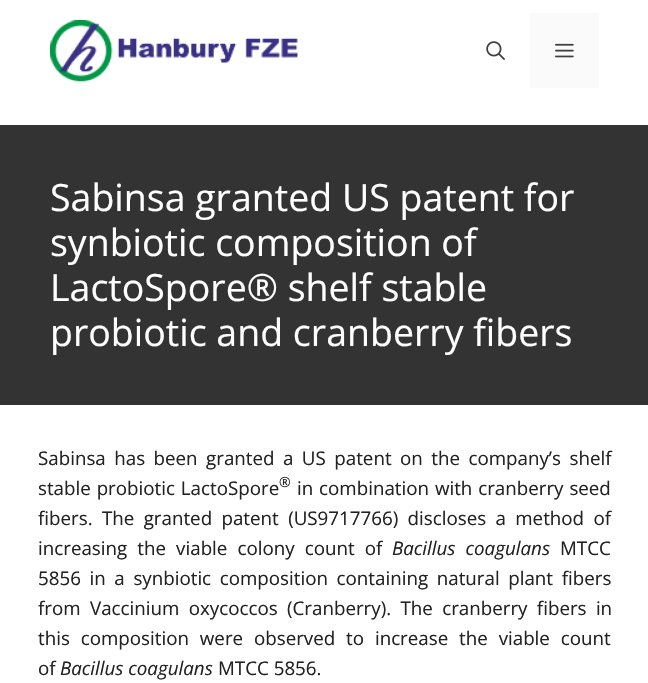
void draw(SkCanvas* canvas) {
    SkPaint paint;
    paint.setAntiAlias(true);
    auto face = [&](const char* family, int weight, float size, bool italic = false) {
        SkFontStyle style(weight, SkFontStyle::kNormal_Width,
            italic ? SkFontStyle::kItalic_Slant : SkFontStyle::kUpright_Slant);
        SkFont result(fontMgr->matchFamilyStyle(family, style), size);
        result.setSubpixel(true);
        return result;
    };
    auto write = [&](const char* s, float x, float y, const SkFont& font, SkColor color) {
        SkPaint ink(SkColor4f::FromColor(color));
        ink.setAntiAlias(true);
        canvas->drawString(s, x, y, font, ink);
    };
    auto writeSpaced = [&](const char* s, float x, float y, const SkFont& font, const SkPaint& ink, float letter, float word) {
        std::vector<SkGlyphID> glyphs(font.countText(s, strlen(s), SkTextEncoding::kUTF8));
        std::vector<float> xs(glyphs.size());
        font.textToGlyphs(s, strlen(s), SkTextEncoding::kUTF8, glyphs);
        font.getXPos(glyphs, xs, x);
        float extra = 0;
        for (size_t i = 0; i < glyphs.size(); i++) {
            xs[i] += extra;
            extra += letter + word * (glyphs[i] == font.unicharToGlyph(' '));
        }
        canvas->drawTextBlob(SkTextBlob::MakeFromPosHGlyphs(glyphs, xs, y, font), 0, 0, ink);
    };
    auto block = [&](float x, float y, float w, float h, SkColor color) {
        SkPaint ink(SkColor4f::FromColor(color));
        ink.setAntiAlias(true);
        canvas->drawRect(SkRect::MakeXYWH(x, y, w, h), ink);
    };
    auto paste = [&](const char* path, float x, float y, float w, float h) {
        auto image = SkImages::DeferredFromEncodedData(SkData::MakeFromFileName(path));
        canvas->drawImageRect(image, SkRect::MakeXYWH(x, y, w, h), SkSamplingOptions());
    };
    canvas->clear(SK_ColorWHITE);
    paste("pic1.png", 50, 20, 248, 62);
    paste("pic2.png", 486, 41, 19, 19);
    block(530, 13, 69, 75, SkColorSetRGB(250, 250, 250));
    paste("pic3.png", 555, 43, 19, 15);
    block(0, 125, 648, 280, SkColorSetRGB(51, 51, 51));
    auto kFont1 = face("Open Sans", 400, 37.5f);
    write("Sabinsa granted US patent for", 50, 211, kFont1, SK_ColorWHITE);
    write("synbiotic composition of", 50, 256, kFont1, SK_ColorWHITE);
    write("LactoSpore® shelf stable", 50, 301, kFont1, SK_ColorWHITE);
    write("probiotic and cranberry fibers", 50, 346, kFont1, SK_ColorWHITE);
    auto kFont2 = face("Open Sans", 400, 18.75f);
    paint.setColor(SkColorSetRGB(34, 34, 34));
    writeSpaced("Sabinsa has been granted a US patent on the company’s shelf", 38, 465, kFont2, paint, 0, 3.6f);
    writeSpaced("stable probiotic LactoSpore", 38, 495, kFont2, paint, 0, 1);
    auto kFont3 = face("Open Sans", 400, 14);
    write("®", 279, 487, kFont3, SkColorSetRGB(34, 34, 34));
    writeSpaced("in combination with cranberry seed", 297, 495, kFont2, paint, 0, 1);
    writeSpaced("fibers. The granted patent (US9717766) discloses a method of", 38, 525, kFont2, paint, 0, 4.5f);
    writeSpaced("increasing the viable colony count of", 38, 555, kFont2, paint, 0, 5.25f);
    auto kFont4 = face("Open Sans", 400, 18.75f, true);
    writeSpaced("Bacillus coagulans", 392, 555, kFont4, paint, 0, 5.25f);
    write("MTCC", 560, 555, kFont2, SkColorSetRGB(34, 34, 34));
    writeSpaced("5856 in a synbiotic composition containing natural plant fibers", 38, 585, kFont2, paint, 0, 3.75f);
    writeSpaced("from Vaccinium oxycoccos (Cranberry). The cranberry fibers in", 38, 615, kFont2, paint, 0, 4.5f);
    writeSpaced("this composition were observed to increase the viable count", 38, 645, kFont2, paint, 0, 6);
    write("of", 38, 675, kFont2, SkColorSetRGB(34, 34, 34));
    write("Bacillus coagulans", 60, 675, kFont4, SkColorSetRGB(34, 34, 34));
    write("MTCC 5856.", 218, 675, kFont2, SkColorSetRGB(34, 34, 34));
}
